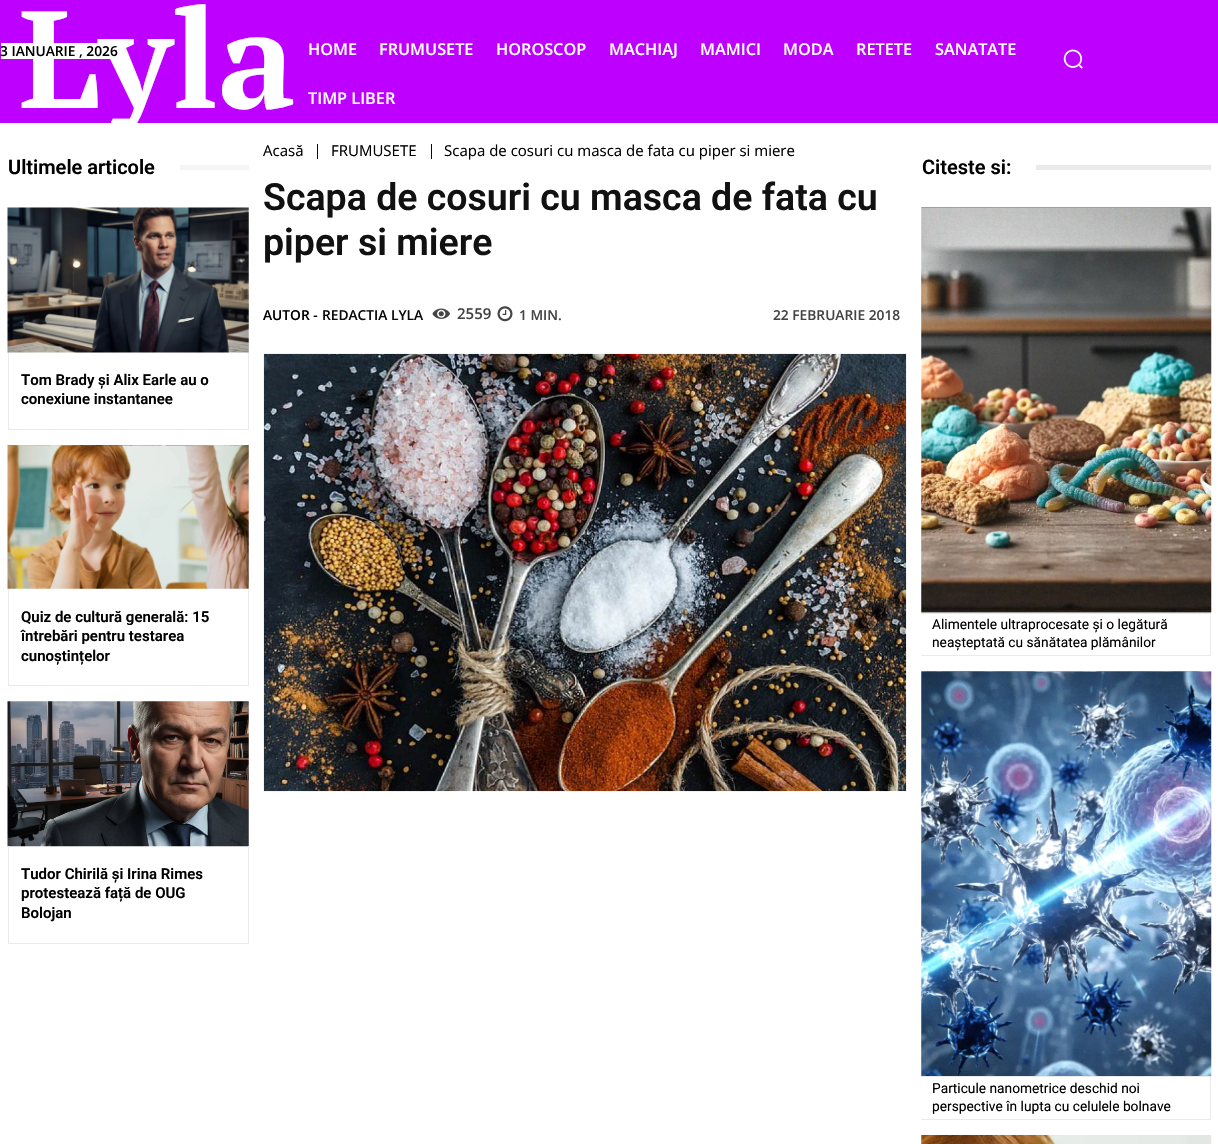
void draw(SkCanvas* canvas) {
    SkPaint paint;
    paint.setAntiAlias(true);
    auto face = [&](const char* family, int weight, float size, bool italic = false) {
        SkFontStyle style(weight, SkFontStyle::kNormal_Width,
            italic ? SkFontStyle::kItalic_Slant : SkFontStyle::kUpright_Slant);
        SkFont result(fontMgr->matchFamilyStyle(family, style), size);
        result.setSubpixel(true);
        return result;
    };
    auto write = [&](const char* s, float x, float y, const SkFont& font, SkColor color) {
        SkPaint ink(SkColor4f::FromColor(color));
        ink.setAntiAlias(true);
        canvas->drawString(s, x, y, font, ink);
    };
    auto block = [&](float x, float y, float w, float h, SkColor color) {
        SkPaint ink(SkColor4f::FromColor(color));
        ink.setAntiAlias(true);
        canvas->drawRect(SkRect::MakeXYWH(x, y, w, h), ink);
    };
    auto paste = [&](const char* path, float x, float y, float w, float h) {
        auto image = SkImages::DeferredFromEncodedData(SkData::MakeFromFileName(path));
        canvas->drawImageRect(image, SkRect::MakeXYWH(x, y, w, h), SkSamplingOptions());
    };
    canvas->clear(SK_ColorWHITE);
    block(0, 0, 1218, 123, SkColorSetRGB(189, 0, 255));
    auto kFont1 = face("PT Serif", 700, 138);
    write("Lyla", 19, 108, kFont1, SK_ColorWHITE);
    block(1, 43, 109, 16, SK_ColorWHITE);
    auto kFont2 = face("Open Sans", 600, 13.75f);
    write("3 IANUARIE , 2026", 0, 56, kFont2, SK_ColorBLACK);
    auto kFont3 = face("Open Sans", 600, 16.25f);
    write("HOME", 308, 55, kFont3, SK_ColorWHITE);
    write("FRUMUSETE", 379, 55, kFont3, SK_ColorWHITE);
    write("HOROSCOP", 496, 55, kFont3, SK_ColorWHITE);
    write("MACHIAJ", 609, 55, kFont3, SK_ColorWHITE);
    write("MAMICI", 700, 55, kFont3, SK_ColorWHITE);
    write("MODA", 783, 55, kFont3, SK_ColorWHITE);
    write("RETETE", 856, 55, kFont3, SK_ColorWHITE);
    write("SANATATE", 935, 55, kFont3, SK_ColorWHITE);
    write("TIMP LIBER", 308, 104, kFont3, SK_ColorWHITE);
    paste("pic1.png", 1063, 49, 20, 20);
    auto kFont4 = face("Roboto", 600, 20);
    write("Ultimele articole", 8, 174, kFont4, SK_ColorBLACK);
    block(180, 165, 69, 5, SkColorSetRGB(245, 245, 245));
    paste("pic2.png", 7, 207, 242, 146);
    block(248, 353, 1, 77, SkColorSetRGB(234, 234, 234));
    block(8, 429, 241, 1, SkColorSetRGB(234, 234, 234));
    block(8, 353, 1, 77, SkColorSetRGB(234, 234, 234));
    auto kFont5 = face("Roboto", 600, 15);
    write("Tom Brady și Alix Earle au o", 21, 385, kFont5, SK_ColorBLACK);
    write("conexiune instantanee", 21, 404, kFont5, SK_ColorBLACK);
    paste("pic3.png", 7, 445, 242, 144);
    block(248, 589, 1, 97, SkColorSetRGB(234, 234, 234));
    block(8, 685, 241, 1, SkColorSetRGB(234, 234, 234));
    block(8, 589, 1, 97, SkColorSetRGB(234, 234, 234));
    write("Quiz de cultură generală: 15", 21, 622, kFont5, SK_ColorBLACK);
    write("întrebări pentru testarea", 21, 641, kFont5, SK_ColorBLACK);
    write("cunoștințelor", 21, 661, kFont5, SK_ColorBLACK);
    paste("pic4.png", 7, 701, 242, 146);
    block(248, 846, 1, 98, SkColorSetRGB(234, 234, 234));
    block(8, 943, 241, 1, SkColorSetRGB(234, 234, 234));
    block(8, 846, 1, 98, SkColorSetRGB(234, 234, 234));
    write("Tudor Chirilă și Irina Rimes", 21, 879, kFont5, SK_ColorBLACK);
    write("protestează față de OUG", 21, 898, kFont5, SK_ColorBLACK);
    write("Bolojan", 21, 918, kFont5, SK_ColorBLACK);
    auto kFont6 = face("Open Sans", 400, 15);
    write("Acasă", 263, 156, kFont6, SK_ColorBLACK);
    block(317, 144, 1, 15, SkColorSetRGB(10, 10, 10));
    write("FRUMUSETE", 331, 156, kFont6, SK_ColorBLACK);
    block(431, 144, 1, 15, SkColorSetRGB(10, 10, 10));
    write("Scapa de cosuri cu masca de fata cu piper si miere", 444, 156, kFont6, SK_ColorBLACK);
    auto kFont7 = face("Roboto", 600, 37.5f);
    write("Scapa de cosuri cu masca de fata cu", 263, 210, kFont7, SkColorSetRGB(17, 17, 17));
    write("piper si miere", 263, 255, kFont7, SkColorSetRGB(17, 17, 17));
    write("AUTOR -", 263, 320, kFont2, SK_ColorBLACK);
    write("REDACTIA LYLA", 322, 320, kFont2, SkColorSetRGB(10, 10, 10));
    paste("pic5.png", 432, 308, 18, 11);
    auto kFont8 = face("Open Sans", 600, 15);
    write("2559", 457, 319, kFont8, SkColorSetRGB(68, 68, 68));
    paste("pic6.png", 497, 306, 16, 16);
    write("1 MIN.", 519, 320, kFont2, SkColorSetRGB(68, 68, 68));
    write("22 FEBRUARIE 2018", 773, 320, kFont2, SkColorSetRGB(68, 68, 68));
    paste("pic7.png", 263, 353, 644, 439);
    write("Citeste si:", 922, 174, kFont4, SK_ColorBLACK);
    block(1036, 165, 175, 5, SkColorSetRGB(234, 234, 234));
    paste("pic8.png", 921, 207, 291, 406);
    block(921, 613, 290, 1, SkColorSetRGB(234, 234, 234));
    block(1210, 613, 1, 43, SkColorSetRGB(234, 234, 234));
    block(921, 655, 290, 1, SkColorSetRGB(234, 234, 234));
    auto kFont9 = face("Roboto", 400, 13.75f);
    write("Alimentele ultraprocesate și o legătură", 932, 629, kFont9, SK_ColorBLACK);
    write("neașteptată cu sănătatea plămânilor", 932, 647, kFont9, SK_ColorBLACK);
    paste("pic9.png", 921, 671, 291, 406);
    block(921, 1076, 290, 1, SkColorSetRGB(234, 234, 234));
    block(1210, 1076, 1, 44, SkColorSetRGB(234, 234, 234));
    block(921, 1119, 290, 1, SkColorSetRGB(234, 234, 234));
    write("Particule nanometrice deschid noi", 932, 1093, kFont9, SK_ColorBLACK);
    write("perspective în lupta cu celulele bolnave", 932, 1111, kFont9, SK_ColorBLACK);
    paste("pic10.png", 921, 1135, 291, 9);
}
